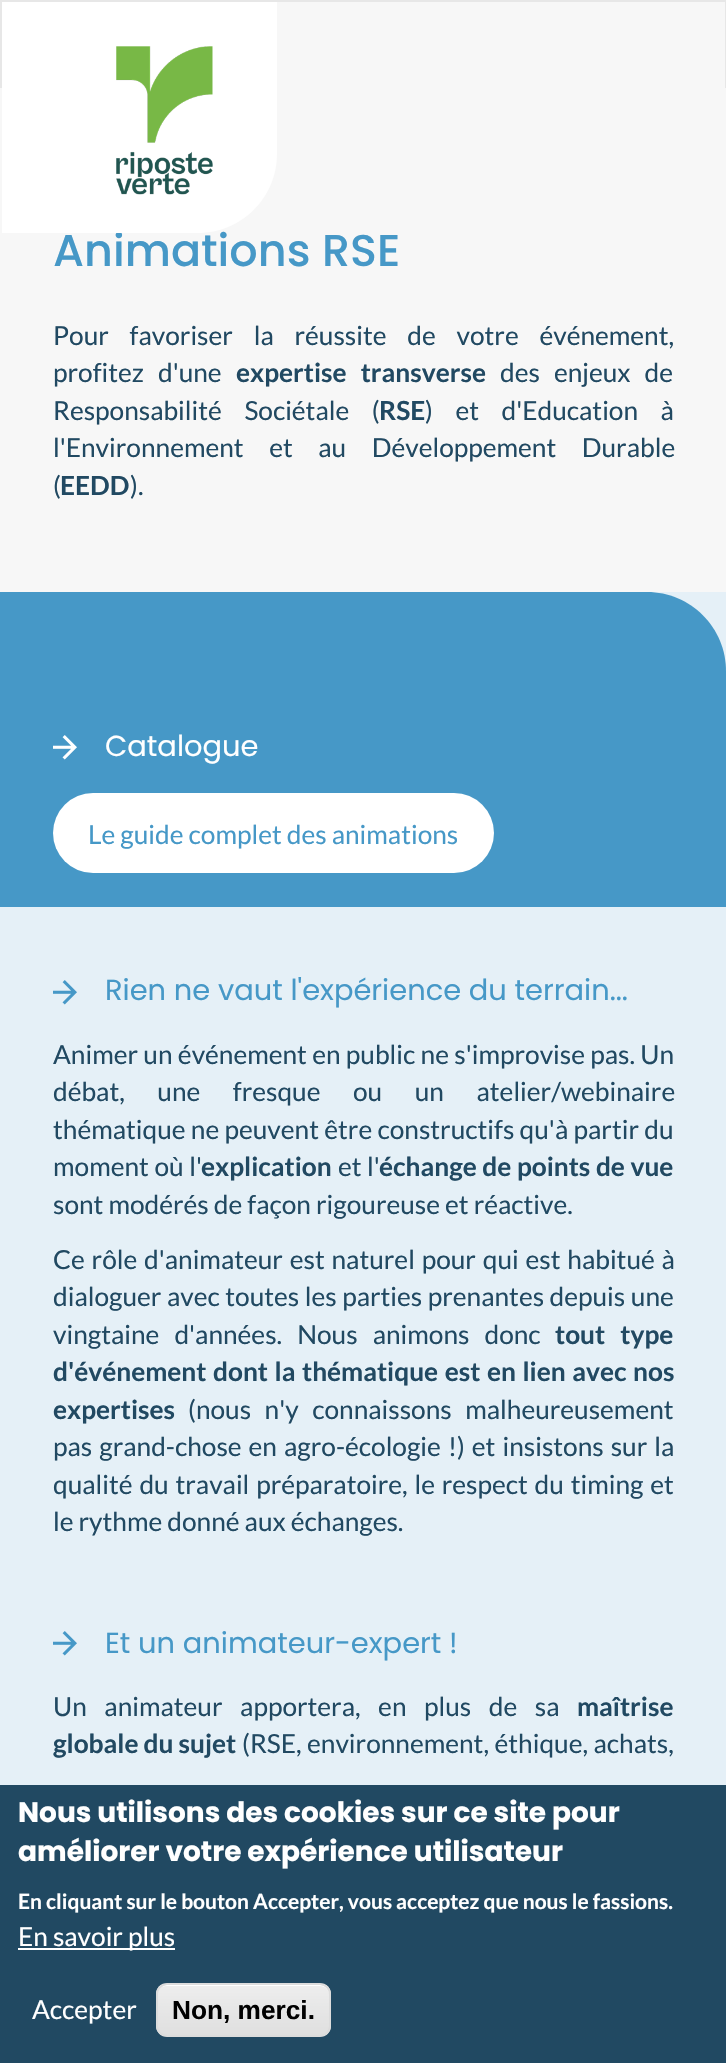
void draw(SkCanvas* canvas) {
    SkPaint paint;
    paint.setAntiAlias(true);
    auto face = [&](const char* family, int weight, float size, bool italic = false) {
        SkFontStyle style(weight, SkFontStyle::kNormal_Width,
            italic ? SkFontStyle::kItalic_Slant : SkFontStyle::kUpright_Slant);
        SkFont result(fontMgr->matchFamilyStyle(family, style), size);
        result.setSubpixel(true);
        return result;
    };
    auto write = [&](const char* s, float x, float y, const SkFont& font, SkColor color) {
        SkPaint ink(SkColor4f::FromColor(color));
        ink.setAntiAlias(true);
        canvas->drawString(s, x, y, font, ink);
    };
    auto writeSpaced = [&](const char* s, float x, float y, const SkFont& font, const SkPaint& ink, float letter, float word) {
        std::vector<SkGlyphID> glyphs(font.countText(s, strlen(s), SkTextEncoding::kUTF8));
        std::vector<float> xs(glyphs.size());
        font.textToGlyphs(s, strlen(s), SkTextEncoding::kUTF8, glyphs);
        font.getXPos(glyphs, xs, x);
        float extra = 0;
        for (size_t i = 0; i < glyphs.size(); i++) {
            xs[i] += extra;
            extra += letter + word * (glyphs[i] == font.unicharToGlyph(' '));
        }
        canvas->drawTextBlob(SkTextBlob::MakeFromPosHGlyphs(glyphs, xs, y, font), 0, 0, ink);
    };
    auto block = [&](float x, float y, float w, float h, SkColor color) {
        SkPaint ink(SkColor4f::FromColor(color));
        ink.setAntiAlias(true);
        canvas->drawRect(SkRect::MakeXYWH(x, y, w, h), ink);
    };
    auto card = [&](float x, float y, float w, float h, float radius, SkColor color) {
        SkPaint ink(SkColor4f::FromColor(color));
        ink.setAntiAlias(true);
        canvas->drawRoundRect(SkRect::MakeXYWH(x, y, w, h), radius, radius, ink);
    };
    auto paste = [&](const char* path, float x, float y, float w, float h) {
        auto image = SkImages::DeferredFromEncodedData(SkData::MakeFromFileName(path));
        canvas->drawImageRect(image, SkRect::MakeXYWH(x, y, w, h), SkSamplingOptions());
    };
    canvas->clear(SkColorSetRGB(247, 247, 247));
    block(0, 0, 726, 2, SkColorSetRGB(231, 231, 231));
    block(725, 0, 1, 88, SkColorSetRGB(231, 231, 231));
    block(0, 0, 2, 88, SkColorSetRGB(231, 231, 231));
    auto kFont1 = face("Poppins", 500, 44.5f);
    write("Animations RSE", 53, 266, kFont1, SkColorSetRGB(70, 152, 199));
    paint.setColor(SK_ColorWHITE);
    canvas->drawPath(SkPathBuilder().moveTo(2, 2).lineTo(277, 2).lineTo(277, 154).cubicTo(277, 197.5f, 241.5f, 233, 198, 233).lineTo(2, 233).close().detach(), paint);
    paste("pic1.png", 116, 46, 97, 149);
    auto kFont2 = face("Lato", 400, 26.25f);
    paint.setColor(SkColorSetRGB(33, 73, 98));
    writeSpaced("Pour favoriser la réussite de votre événement,", 53, 345, kFont2, paint, 0, 15.75f);
    writeSpaced("profitez d'une", 53, 382, kFont2, paint, 0, 9);
    auto kFont3 = face("Lato", 700, 26.25f);
    writeSpaced("expertise transverse", 236, 382, kFont3, paint, 0, 9);
    writeSpaced("des enjeux de", 500, 382, kFont2, paint, 0, 9);
    writeSpaced("Responsabilité Sociétale (", 53, 420, kFont2, paint, 0, 17.5f);
    write("RSE", 379, 420, kFont3, SkColorSetRGB(33, 73, 98));
    writeSpaced(") et d'Education à", 425, 420, kFont2, paint, 0, 17.5f);
    writeSpaced("l'Environnement et au Développement Durable", 53, 457, kFont2, paint, 0, 20.5f);
    write("(", 53, 495, kFont2, SkColorSetRGB(33, 73, 98));
    write("EEDD", 60, 495, kFont3, SkColorSetRGB(33, 73, 98));
    write(").", 130, 495, kFont2, SkColorSetRGB(33, 73, 98));
    block(0, 592, 726, 1193, SkColorSetRGB(229, 240, 247));
    paint.setColor(SkColorSetRGB(70, 152, 199));
    canvas->drawPath(SkPathBuilder().moveTo(0, 592).lineTo(647, 592).cubicTo(690.5f, 592, 726, 627.5f, 726, 671).lineTo(726, 907).lineTo(0, 907).close().detach(), paint);
    paste("pic2.png", 53, 735, 24, 25);
    auto kFont4 = face("Poppins", 400, 28.9f);
    write("Catalogue", 105, 756, kFont4, SK_ColorWHITE);
    card(53, 793, 441, 80, 40, SK_ColorWHITE);
    write("Le guide complet des animations", 88, 844, kFont2, SkColorSetRGB(70, 152, 199));
    paste("pic3.png", 53, 980, 24, 25);
    write("Rien ne vaut l'expérience du terrain...", 105, 1000, kFont4, SkColorSetRGB(70, 152, 199));
    paint.setColor(SkColorSetRGB(33, 73, 98));
    writeSpaced("Animer un événement en public ne s'improvise pas. Un", 53, 1064, kFont2, paint, 0, 0.25f);
    writeSpaced("débat, une fresque ou un atelier/webinaire", 53, 1101, kFont2, paint, 0, 27.5f);
    writeSpaced("thématique ne peuvent être constructifs qu'à partir du", 53, 1139, kFont2, paint, 0, 0.25f);
    writeSpaced("moment où l'", 53, 1176, kFont2, paint, 0, 0.5f);
    write("explication", 201, 1176, kFont3, SkColorSetRGB(33, 73, 98));
    writeSpaced("et l'", 338, 1176, kFont2, paint, 0, 0.5f);
    writeSpaced("échange de points de vue", 379, 1176, kFont3, paint, 0, 0.5f);
    write("sont modérés de façon rigoureuse et réactive.", 53, 1214, kFont2, SkColorSetRGB(33, 73, 98));
    writeSpaced("Ce rôle d'animateur est naturel pour qui est habitué à", 53, 1269, kFont2, paint, 0, 1.75f);
    writeSpaced("dialoguer avec toutes les parties prenantes depuis une", 53, 1306, kFont2, paint, 0, 0.5f);
    writeSpaced("vingtaine d'années. Nous animons donc", 53, 1344, kFont2, paint, 0, 10);
    writeSpaced("tout type", 555, 1344, kFont3, paint, 0, 10);
    writeSpaced("d'événement dont la thématique est en lien avec nos", 53, 1381, kFont3, paint, 0, 1.5f);
    write("expertises", 53, 1419, kFont3, SkColorSetRGB(33, 73, 98));
    writeSpaced("(nous n'y connaissons malheureusement", 188, 1419, kFont2, paint, 0, 8.5f);
    writeSpaced("pas grand-chose en agro-écologie !) et insistons sur la", 53, 1456, kFont2, paint, 0, 2);
    writeSpaced("qualité du travail préparatoire, le respect du timing et", 53, 1494, kFont2, paint, 0, 1.75f);
    write("le rythme donné aux échanges.", 53, 1531, kFont2, SkColorSetRGB(33, 73, 98));
    paste("pic3.png", 53, 1631, 24, 25);
    write("Et un animateur-expert !", 105, 1653, kFont4, SkColorSetRGB(70, 152, 199));
    writeSpaced("Un animateur apportera, en plus de sa", 53, 1716, kFont2, paint, 0, 12.5f);
    write("maîtrise", 577, 1716, kFont3, SkColorSetRGB(33, 73, 98));
    write("globale du sujet", 53, 1753, kFont3, SkColorSetRGB(33, 73, 98));
    writeSpaced("(RSE, environnement, éthique, achats,", 242, 1753, kFont2, paint, 0, 0.5f);
    block(0, 1785, 726, 278, SkColorSetRGB(33, 73, 98));
    auto kFont5 = face("Poppins", 700, 28);
    write("Nous utilisons des cookies sur ce site pour", 18, 1822, kFont5, SK_ColorWHITE);
    write("améliorer votre expérience utilisateur", 18, 1861, kFont5, SK_ColorWHITE);
    auto kFont6 = face("Lato", 700, 21);
    write("En cliquant sur le bouton Accepter, vous acceptez que nous le fassions.", 18, 1909, kFont6, SK_ColorWHITE);
    block(18, 1948, 157, 2, SK_ColorWHITE);
    write("En savoir plus", 18, 1946, kFont2, SK_ColorWHITE);
    write("Accepter", 32, 2019, kFont2, SK_ColorWHITE);
    canvas->save();
    canvas->clipPath(SkPathBuilder().moveTo(167, 1983).lineTo(320, 1983).cubicTo(326, 1983, 331, 1988, 331, 1994).lineTo(331, 2026).cubicTo(331, 2032, 326, 2037, 320, 2037).lineTo(167, 2037).cubicTo(161, 2037, 156, 2032, 156, 2026).lineTo(156, 1994).cubicTo(156, 1988, 161, 1983, 167, 1983).close().detach(), true);
    {
        const SkColor colors[] = {SkColorSetRGB(237, 237, 237), SkColorSetRGB(223, 223, 223)};
        const float stops[] = {0.05f, 1};
        const SkPoint ends[] = {{243, 1985}, {243, 2035}};
        paint.setShader(SkGradientShader::MakeLinear(ends, colors, stops, 2, SkTileMode::kClamp));
        paint.setAlpha(255);
    }
    canvas->drawRect(SkRect::MakeXYWH(156, 1985, 175, 50), paint);
    canvas->restore();
    paint.setShader(nullptr);
    paint.setColor(SK_ColorWHITE);
    canvas->drawPath(SkPathBuilder().moveTo(166, 1986).lineTo(320, 1986).cubicTo(325, 1986, 329, 1990, 329, 1995).cubicTo(329, 1979, 302, 1985, 294, 1985).lineTo(192, 1985).cubicTo(185, 1985, 158, 1979, 158, 1995).cubicTo(158, 1990, 161, 1986, 166, 1986).close().detach(), paint);
    paint.setStyle(SkPaint::kStroke_Style);
    paint.setStrokeWidth(2);
    paint.setColor(SkColorSetRGB(220, 220, 220));
    canvas->drawRoundRect(SkRect::MakeXYWH(157, 1984, 173, 52), 10, 10, paint);
    auto kFont7 = face("Liberation Sans", 700, 26.25f);
    write("Non, merci.", 172, 2019, kFont7, SK_ColorBLACK);
}
